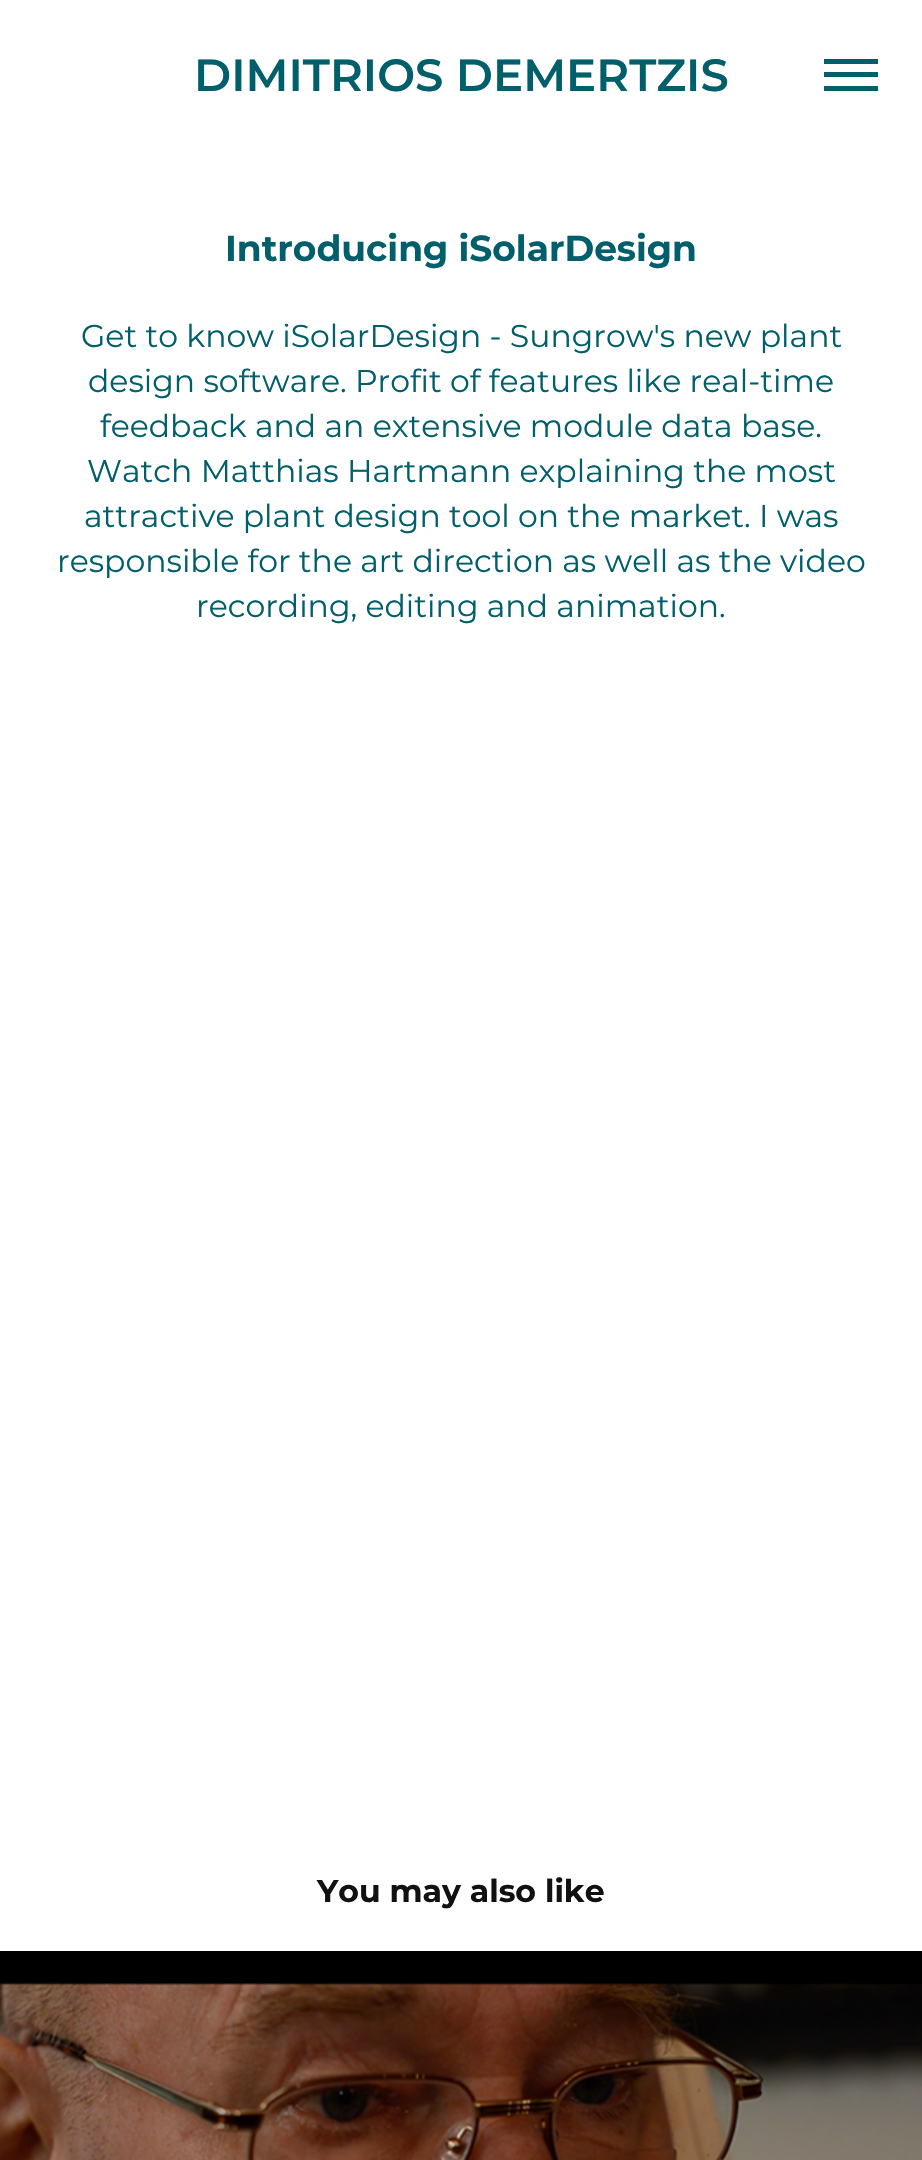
void draw(SkCanvas* canvas) {
    SkPaint paint;
    paint.setAntiAlias(true);
    auto face = [&](const char* family, int weight, float size, bool italic = false) {
        SkFontStyle style(weight, SkFontStyle::kNormal_Width,
            italic ? SkFontStyle::kItalic_Slant : SkFontStyle::kUpright_Slant);
        SkFont result(fontMgr->matchFamilyStyle(family, style), size);
        result.setSubpixel(true);
        return result;
    };
    auto write = [&](const char* s, float x, float y, const SkFont& font, SkColor color) {
        SkPaint ink(SkColor4f::FromColor(color));
        ink.setAntiAlias(true);
        canvas->drawString(s, x, y, font, ink);
    };
    auto block = [&](float x, float y, float w, float h, SkColor color) {
        SkPaint ink(SkColor4f::FromColor(color));
        ink.setAntiAlias(true);
        canvas->drawRect(SkRect::MakeXYWH(x, y, w, h), ink);
    };
    auto paste = [&](const char* path, float x, float y, float w, float h) {
        auto image = SkImages::DeferredFromEncodedData(SkData::MakeFromFileName(path));
        canvas->drawImageRect(image, SkRect::MakeXYWH(x, y, w, h), SkSamplingOptions());
    };
    canvas->clear(SK_ColorWHITE);
    auto kFont1 = face("Montserrat", 600, 45);
    write("DIMITRIOS DEMERTZIS", 194, 91, kFont1, SkColorSetRGB(0, 95, 106));
    block(824, 59, 54, 5, SkColorSetRGB(0, 95, 106));
    block(824, 72, 54, 5, SkColorSetRGB(0, 95, 106));
    block(824, 86, 54, 5, SkColorSetRGB(0, 95, 106));
    auto kFont2 = face("Montserrat", 700, 36);
    write("Introducing iSolarDesign", 225, 261, kFont2, SkColorSetRGB(0, 95, 106));
    auto kFont3 = face("Montserrat", 400, 31.5f);
    write("Get to know iSolarDesign - Sungrow's new plant", 81, 347, kFont3, SkColorSetRGB(0, 95, 106));
    write("design software. Profit of features like real-time", 88, 392, kFont3, SkColorSetRGB(0, 95, 106));
    write("feedback and an extensive module data base.", 100, 437, kFont3, SkColorSetRGB(0, 95, 106));
    write("Watch Matthias Hartmann explaining the most", 87, 482, kFont3, SkColorSetRGB(0, 95, 106));
    write("attractive plant design tool on the market. I was", 84, 527, kFont3, SkColorSetRGB(0, 95, 106));
    write("responsible for the art direction as well as the video", 57, 572, kFont3, SkColorSetRGB(0, 95, 106));
    write("recording, editing and animation.", 196, 617, kFont3, SkColorSetRGB(0, 95, 106));
    auto kFont4 = face("Montserrat", 700, 31.5f);
    write("You may also like", 317, 1902, kFont4, SkColorSetRGB(17, 17, 17));
    paste("pic1.png", 0, 1951, 922, 209);
}
